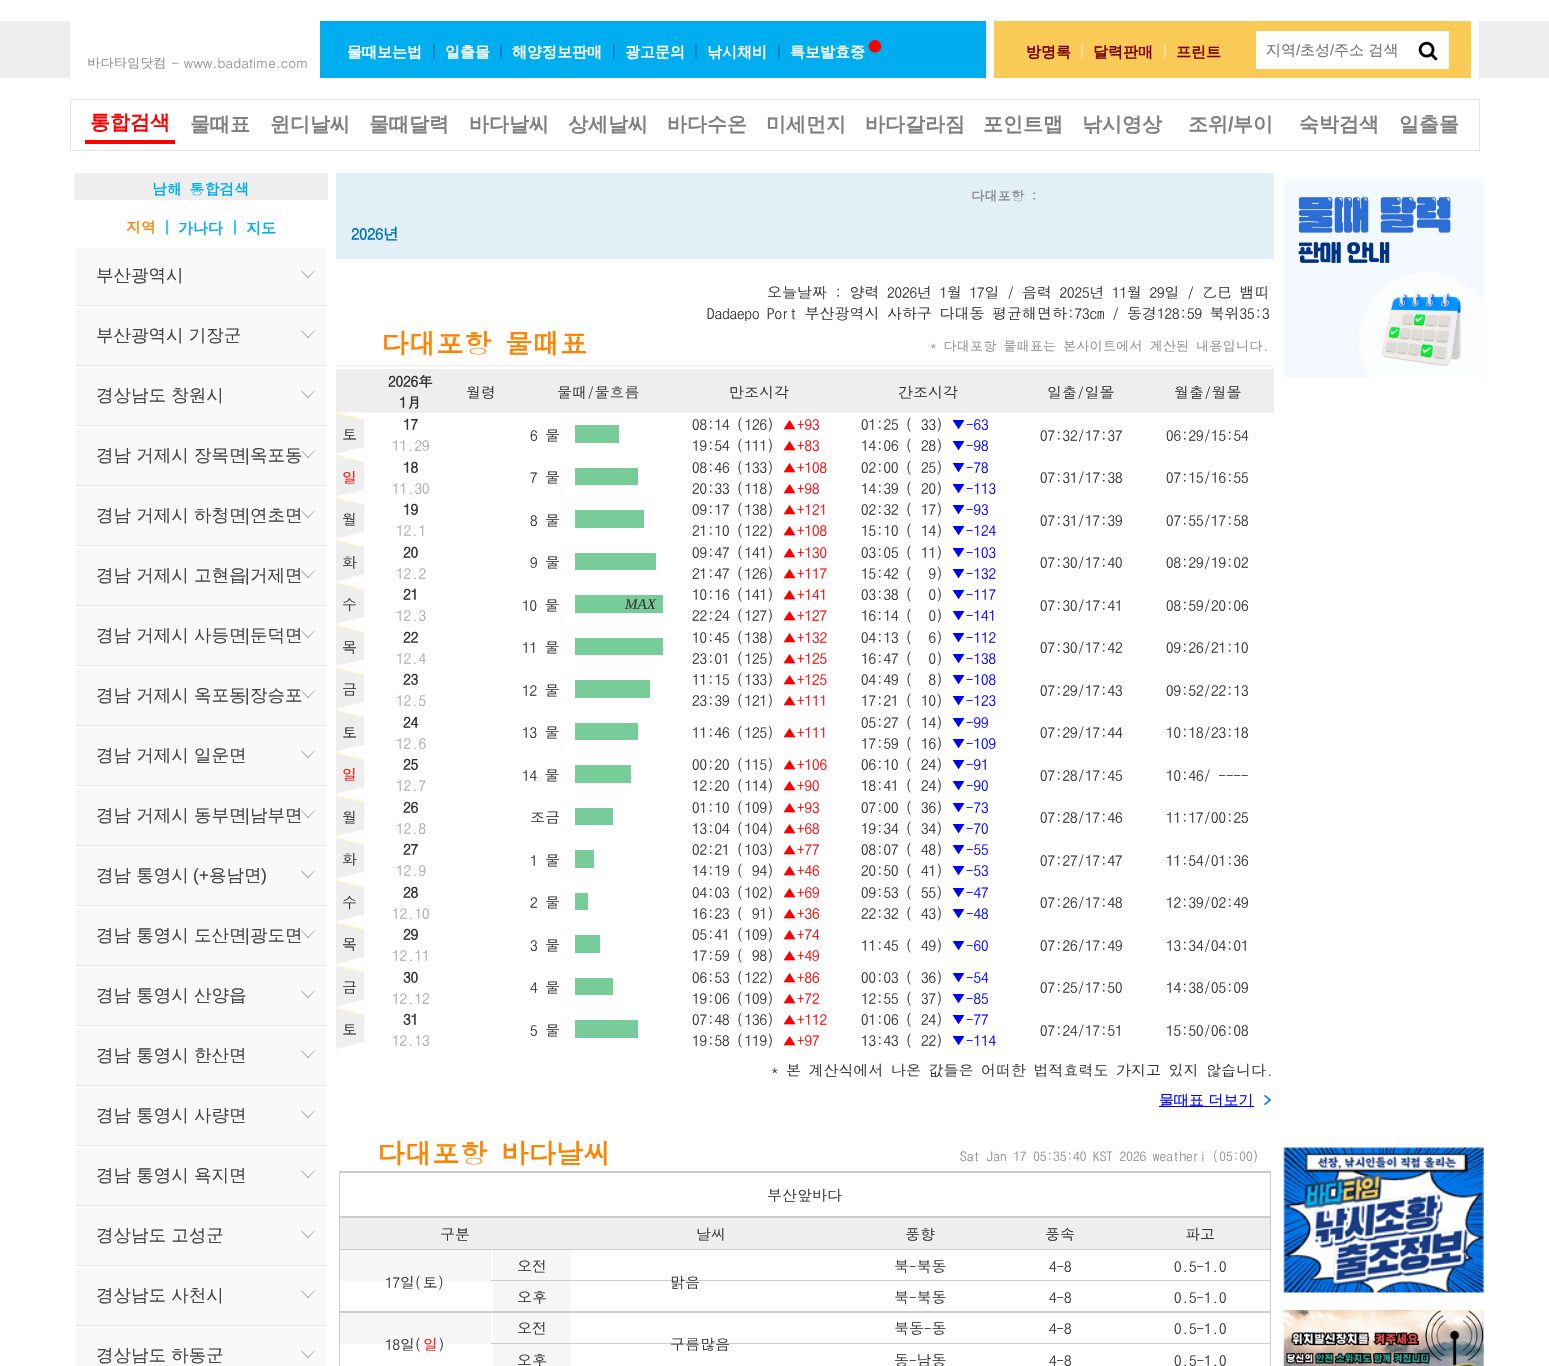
void draw(SkCanvas* canvas) {
    SkPaint paint;
    paint.setAntiAlias(true);
    auto face = [&](const char* family, int weight, float size, bool italic = false) {
        SkFontStyle style(weight, SkFontStyle::kNormal_Width,
            italic ? SkFontStyle::kItalic_Slant : SkFontStyle::kUpright_Slant);
        SkFont result(fontMgr->matchFamilyStyle(family, style), size);
        result.setSubpixel(true);
        return result;
    };
    auto write = [&](const char* s, float x, float y, const SkFont& font, SkColor color) {
        SkPaint ink(SkColor4f::FromColor(color));
        ink.setAntiAlias(true);
        canvas->drawString(s, x, y, font, ink);
    };
    auto block = [&](float x, float y, float w, float h, SkColor color) {
        SkPaint ink(SkColor4f::FromColor(color));
        ink.setAntiAlias(true);
        canvas->drawRect(SkRect::MakeXYWH(x, y, w, h), ink);
    };
    auto paste = [&](const char* path, float x, float y, float w, float h) {
        auto image = SkImages::DeferredFromEncodedData(SkData::MakeFromFileName(path));
        canvas->drawImageRect(image, SkRect::MakeXYWH(x, y, w, h), SkSamplingOptions());
    };
    canvas->clear(SK_ColorWHITE);
    block(0, 21, 1549, 57, SkColorSetRGB(238, 238, 238));
    block(70, 21, 250, 57, SK_ColorWHITE);
    block(320, 21, 666, 57, SkColorSetRGB(0, 174, 239));
    block(986, 21, 8, 57, SK_ColorWHITE);
    block(994, 21, 477, 57, SkColorSetRGB(250, 202, 87));
    block(1471, 21, 8, 57, SK_ColorWHITE);
    auto kFont1 = face("WenQuanYi Zen Hei", 700, 15);
    write("물때보는법", 347, 57, kFont1, SK_ColorWHITE);
    auto kFont2 = face("DotumChe", 700, 15);
    write("|", 430, 57, kFont2, SkColorSetRGB(0, 114, 188));
    write("일출몰", 445, 57, kFont1, SK_ColorWHITE);
    write("|", 497, 57, kFont2, SkColorSetRGB(0, 114, 188));
    write("해양정보판매", 512, 57, kFont1, SK_ColorWHITE);
    write("|", 610, 57, kFont2, SkColorSetRGB(0, 114, 188));
    write("광고문의", 625, 57, kFont1, SK_ColorWHITE);
    write("|", 692, 57, kFont2, SkColorSetRGB(0, 114, 188));
    write("낚시채비", 707, 57, kFont1, SK_ColorWHITE);
    write("|", 775, 57, kFont2, SkColorSetRGB(0, 114, 188));
    write("특보발효중", 790, 57, kFont1, SK_ColorWHITE);
    paste("pic1.png", 868, 40, 14, 13);
    write("방명록", 1026, 57, kFont1, SkColorSetRGB(121, 0, 0));
    write("|", 1078, 57, kFont2, SkColorSetRGB(255, 227, 164));
    write("달력판매", 1093, 57, kFont1, SkColorSetRGB(121, 0, 0));
    write("|", 1161, 57, kFont2, SkColorSetRGB(255, 227, 164));
    write("프린트", 1176, 57, kFont1, SkColorSetRGB(121, 0, 0));
    block(1256, 31, 193, 38, SK_ColorWHITE);
    paste("pic2.png", 1418, 41, 20, 20);
    auto kFont3 = face("WenQuanYi Zen Hei", 500, 15);
    write("지역", 1266, 55, kFont3, SkColorSetRGB(117, 117, 117));
    auto kFont4 = face("Liberation Sans", 400, 15);
    write("/", 1296, 55, kFont4, SkColorSetRGB(117, 117, 117));
    write("초성", 1300, 55, kFont3, SkColorSetRGB(117, 117, 117));
    write("/", 1330, 55, kFont4, SkColorSetRGB(117, 117, 117));
    write("주소 검색", 1334, 55, kFont3, SkColorSetRGB(117, 117, 117));
    auto kFont5 = face("Dotum", 400, 13.3f);
    write("바다타임닷컴 - www.badatime.com", 87, 68, kFont5, SkColorSetRGB(142, 142, 142));
    block(70, 99, 1410, 52, SkColorSetRGB(228, 228, 228));
    block(71, 100, 1408, 50, SK_ColorWHITE);
    block(85, 140, 90, 4, SkColorSetRGB(255, 0, 0));
    auto kFont6 = face("WenQuanYi Zen Hei", 700, 20);
    write("통합검색", 90, 129, kFont6, SkColorSetRGB(255, 0, 0));
    write("물때표", 190, 131, kFont6, SkColorSetRGB(128, 128, 128));
    write("윈디날씨", 270, 131, kFont6, SkColorSetRGB(128, 128, 128));
    write("물때달력", 369, 131, kFont6, SkColorSetRGB(128, 128, 128));
    write("바다날씨", 469, 131, kFont6, SkColorSetRGB(128, 128, 128));
    write("상세날씨", 568, 131, kFont6, SkColorSetRGB(128, 128, 128));
    write("바다수온", 667, 131, kFont6, SkColorSetRGB(128, 128, 128));
    write("미세먼지", 766, 131, kFont6, SkColorSetRGB(128, 128, 128));
    write("바다갈라짐", 865, 131, kFont6, SkColorSetRGB(128, 128, 128));
    write("포인트맵", 983, 131, kFont6, SkColorSetRGB(128, 128, 128));
    write("낚시영상", 1082, 131, kFont6, SkColorSetRGB(128, 128, 128));
    write("조위", 1188, 131, kFont6, SkColorSetRGB(128, 128, 128));
    auto kFont7 = face("Liberation Sans", 700, 20);
    write("/", 1228, 131, kFont7, SkColorSetRGB(128, 128, 128));
    write("부이", 1233, 131, kFont6, SkColorSetRGB(128, 128, 128));
    write("숙박검색", 1299, 131, kFont6, SkColorSetRGB(128, 128, 128));
    write("일출몰", 1399, 131, kFont6, SkColorSetRGB(128, 128, 128));
    block(75, 173, 253, 27, SkColorSetRGB(238, 238, 238));
    write("남해 통합검색", 152, 195, kFont2, SkColorSetRGB(0, 174, 239));
    write("지역", 126, 233, kFont2, SkColorSetRGB(255, 131, 0));
    write("|", 163, 233, kFont2, SkColorSetRGB(0, 174, 239));
    write("가나다", 178, 233, kFont1, SkColorSetRGB(0, 174, 239));
    write("|", 231, 233, kFont2, SkColorSetRGB(0, 174, 239));
    write("지도", 246, 233, kFont1, SkColorSetRGB(0, 174, 239));
    block(76, 305, 250, 1, SkColorSetRGB(229, 229, 229));
    block(76, 248, 250, 57, SkColorSetRGB(249, 249, 249));
    auto kFont8 = face("WenQuanYi Zen Hei", 500, 17.5f);
    write("부산광역시", 96, 281, kFont8, SkColorSetRGB(68, 68, 68));
    paint.setColor(SkColorSetRGB(186, 186, 186));
    canvas->drawPath(SkPathBuilder().moveTo(314.5f, 270.5f).lineTo(315, 271).lineTo(308, 278.5f).lineTo(307, 277.5f).close().detach(), paint);
    canvas->drawPath(SkPathBuilder().moveTo(302, 270.5f).lineTo(309, 277.5f).lineTo(308, 278.5f).lineTo(301, 271).close().detach(), paint);
    block(76, 306, 250, 1, SkColorSetRGB(252, 252, 252));
    block(76, 365, 250, 1, SkColorSetRGB(229, 229, 229));
    block(76, 308, 250, 57, SkColorSetRGB(249, 249, 249));
    write("부산광역시 기장군", 96, 341, kFont8, SkColorSetRGB(68, 68, 68));
    canvas->drawPath(SkPathBuilder().moveTo(314.5f, 330.5f).lineTo(315, 331).lineTo(308, 338.5f).lineTo(307, 337.5f).close().detach(), paint);
    canvas->drawPath(SkPathBuilder().moveTo(302, 330.5f).lineTo(309, 337.5f).lineTo(308, 338.5f).lineTo(301, 331).close().detach(), paint);
    block(76, 366, 250, 1, SkColorSetRGB(252, 252, 252));
    block(76, 425, 250, 1, SkColorSetRGB(229, 229, 229));
    block(76, 368, 250, 57, SkColorSetRGB(249, 249, 249));
    write("경상남도 창원시", 96, 401, kFont8, SkColorSetRGB(68, 68, 68));
    canvas->drawPath(SkPathBuilder().moveTo(314.5f, 390.5f).lineTo(315, 391).lineTo(308, 398.5f).lineTo(307, 397.5f).close().detach(), paint);
    canvas->drawPath(SkPathBuilder().moveTo(302, 390.5f).lineTo(309, 397.5f).lineTo(308, 398.5f).lineTo(301, 391).close().detach(), paint);
    block(76, 426, 250, 1, SkColorSetRGB(252, 252, 252));
    block(76, 485, 250, 1, SkColorSetRGB(229, 229, 229));
    block(76, 428, 250, 57, SkColorSetRGB(249, 249, 249));
    write("경남 거제시 장목면", 96, 461, kFont8, SkColorSetRGB(68, 68, 68));
    auto kFont9 = face("Liberation Sans", 400, 17.5f);
    write("|", 245, 461, kFont9, SkColorSetRGB(68, 68, 68));
    write("옥포동", 250, 461, kFont8, SkColorSetRGB(68, 68, 68));
    canvas->drawPath(SkPathBuilder().moveTo(314.5f, 450.5f).lineTo(315, 451).lineTo(308, 458.5f).lineTo(307, 457.5f).close().detach(), paint);
    canvas->drawPath(SkPathBuilder().moveTo(302, 450.5f).lineTo(309, 457.5f).lineTo(308, 458.5f).lineTo(301, 451).close().detach(), paint);
    block(76, 486, 250, 1, SkColorSetRGB(252, 252, 252));
    block(76, 545, 250, 1, SkColorSetRGB(229, 229, 229));
    block(76, 488, 250, 57, SkColorSetRGB(249, 249, 249));
    write("경남 거제시 하청면", 96, 521, kFont8, SkColorSetRGB(68, 68, 68));
    write("|", 245, 521, kFont9, SkColorSetRGB(68, 68, 68));
    write("연초면", 250, 521, kFont8, SkColorSetRGB(68, 68, 68));
    canvas->drawPath(SkPathBuilder().moveTo(314.5f, 510.5f).lineTo(315, 511).lineTo(308, 518.5f).lineTo(307, 517.5f).close().detach(), paint);
    canvas->drawPath(SkPathBuilder().moveTo(302, 510.5f).lineTo(309, 517.5f).lineTo(308, 518.5f).lineTo(301, 511).close().detach(), paint);
    block(76, 546, 250, 1, SkColorSetRGB(252, 252, 252));
    block(76, 605, 250, 1, SkColorSetRGB(229, 229, 229));
    block(76, 548, 250, 57, SkColorSetRGB(249, 249, 249));
    write("경남 거제시 고현읍", 96, 581, kFont8, SkColorSetRGB(68, 68, 68));
    write("|", 245, 581, kFont9, SkColorSetRGB(68, 68, 68));
    write("거제면", 250, 581, kFont8, SkColorSetRGB(68, 68, 68));
    canvas->drawPath(SkPathBuilder().moveTo(314.5f, 570.5f).lineTo(315, 571).lineTo(308, 578.5f).lineTo(307, 577.5f).close().detach(), paint);
    canvas->drawPath(SkPathBuilder().moveTo(302, 570.5f).lineTo(309, 577.5f).lineTo(308, 578.5f).lineTo(301, 571.5f).close().detach(), paint);
    block(76, 606, 250, 1, SkColorSetRGB(252, 252, 252));
    block(76, 665, 250, 1, SkColorSetRGB(229, 229, 229));
    block(76, 608, 250, 57, SkColorSetRGB(249, 249, 249));
    write("경남 거제시 사등면", 96, 641, kFont8, SkColorSetRGB(68, 68, 68));
    write("|", 245, 641, kFont9, SkColorSetRGB(68, 68, 68));
    write("둔덕면", 250, 641, kFont8, SkColorSetRGB(68, 68, 68));
    canvas->drawPath(SkPathBuilder().moveTo(314.5f, 630.5f).lineTo(315, 631).lineTo(308, 638.5f).lineTo(307, 637.5f).close().detach(), paint);
    canvas->drawPath(SkPathBuilder().moveTo(302, 630.5f).lineTo(309, 637.5f).lineTo(308, 638.5f).lineTo(301, 631).close().detach(), paint);
    block(76, 666, 250, 1, SkColorSetRGB(252, 252, 252));
    block(76, 725, 250, 1, SkColorSetRGB(229, 229, 229));
    block(76, 668, 250, 57, SkColorSetRGB(249, 249, 249));
    write("경남 거제시 옥포동", 96, 701, kFont8, SkColorSetRGB(68, 68, 68));
    write("|", 245, 701, kFont9, SkColorSetRGB(68, 68, 68));
    write("장승포", 250, 701, kFont8, SkColorSetRGB(68, 68, 68));
    canvas->drawPath(SkPathBuilder().moveTo(314.5f, 690.5f).lineTo(315, 691).lineTo(308, 698.5f).lineTo(307, 697.5f).close().detach(), paint);
    canvas->drawPath(SkPathBuilder().moveTo(302, 690.5f).lineTo(309, 697.5f).lineTo(308, 698.5f).lineTo(301, 691).close().detach(), paint);
    block(76, 726, 250, 1, SkColorSetRGB(252, 252, 252));
    block(76, 785, 250, 1, SkColorSetRGB(229, 229, 229));
    block(76, 728, 250, 57, SkColorSetRGB(249, 249, 249));
    write("경남 거제시 일운면", 96, 761, kFont8, SkColorSetRGB(68, 68, 68));
    canvas->drawPath(SkPathBuilder().moveTo(314.5f, 750.5f).lineTo(315, 751).lineTo(308, 758.5f).lineTo(307, 757.5f).close().detach(), paint);
    canvas->drawPath(SkPathBuilder().moveTo(302, 750.5f).lineTo(309, 757.5f).lineTo(308, 758.5f).lineTo(301, 751).close().detach(), paint);
    block(76, 786, 250, 1, SkColorSetRGB(252, 252, 252));
    block(76, 845, 250, 1, SkColorSetRGB(229, 229, 229));
    block(76, 788, 250, 57, SkColorSetRGB(249, 249, 249));
    write("경남 거제시 동부면", 96, 821, kFont8, SkColorSetRGB(68, 68, 68));
    write("|", 245, 821, kFont9, SkColorSetRGB(68, 68, 68));
    write("남부면", 250, 821, kFont8, SkColorSetRGB(68, 68, 68));
    canvas->drawPath(SkPathBuilder().moveTo(314.5f, 810.5f).lineTo(315, 811).lineTo(308, 818.5f).lineTo(307, 817.5f).close().detach(), paint);
    canvas->drawPath(SkPathBuilder().moveTo(302, 810.5f).lineTo(309, 817.5f).lineTo(308, 818.5f).lineTo(301, 811).close().detach(), paint);
    block(76, 846, 250, 1, SkColorSetRGB(252, 252, 252));
    block(76, 905, 250, 1, SkColorSetRGB(229, 229, 229));
    block(76, 848, 250, 57, SkColorSetRGB(249, 249, 249));
    write("경남 통영시", 96, 881, kFont8, SkColorSetRGB(68, 68, 68));
    write("(+", 193, 881, kFont9, SkColorSetRGB(68, 68, 68));
    write("용남면", 209, 881, kFont8, SkColorSetRGB(68, 68, 68));
    write(")", 261, 881, kFont9, SkColorSetRGB(68, 68, 68));
    canvas->drawPath(SkPathBuilder().moveTo(314.5f, 870.5f).lineTo(315, 871).lineTo(308, 878.5f).lineTo(307, 877.5f).close().detach(), paint);
    canvas->drawPath(SkPathBuilder().moveTo(302, 870.5f).lineTo(309, 877.5f).lineTo(308, 878.5f).lineTo(301, 871.5f).close().detach(), paint);
    block(76, 906, 250, 1, SkColorSetRGB(252, 252, 252));
    block(76, 965, 250, 1, SkColorSetRGB(229, 229, 229));
    block(76, 908, 250, 57, SkColorSetRGB(249, 249, 249));
    write("경남 통영시 도산면", 96, 941, kFont8, SkColorSetRGB(68, 68, 68));
    write("|", 245, 941, kFont9, SkColorSetRGB(68, 68, 68));
    write("광도면", 250, 941, kFont8, SkColorSetRGB(68, 68, 68));
    canvas->drawPath(SkPathBuilder().moveTo(314.5f, 930.5f).lineTo(315, 931).lineTo(308, 938.5f).lineTo(307, 937.5f).close().detach(), paint);
    canvas->drawPath(SkPathBuilder().moveTo(302, 930.5f).lineTo(309, 937.5f).lineTo(308, 938.5f).lineTo(301, 931).close().detach(), paint);
    block(76, 966, 250, 1, SkColorSetRGB(252, 252, 252));
    block(76, 1025, 250, 1, SkColorSetRGB(229, 229, 229));
    block(76, 968, 250, 57, SkColorSetRGB(249, 249, 249));
    write("경남 통영시 산양읍", 96, 1001, kFont8, SkColorSetRGB(68, 68, 68));
    canvas->drawPath(SkPathBuilder().moveTo(314.5f, 990.5f).lineTo(315, 991).lineTo(308, 998.5f).lineTo(307, 997.5f).close().detach(), paint);
    canvas->drawPath(SkPathBuilder().moveTo(302, 990.5f).lineTo(309, 997.5f).lineTo(308, 998.5f).lineTo(301, 991).close().detach(), paint);
    block(76, 1026, 250, 1, SkColorSetRGB(252, 252, 252));
    block(76, 1085, 250, 1, SkColorSetRGB(229, 229, 229));
    block(76, 1028, 250, 57, SkColorSetRGB(249, 249, 249));
    write("경남 통영시 한산면", 96, 1061, kFont8, SkColorSetRGB(68, 68, 68));
    canvas->drawPath(SkPathBuilder().moveTo(314.5f, 1050.5f).lineTo(315, 1051).lineTo(308, 1058.5f).lineTo(307, 1057.5f).close().detach(), paint);
    canvas->drawPath(SkPathBuilder().moveTo(302, 1050.5f).lineTo(309, 1057.5f).lineTo(308, 1058.5f).lineTo(301, 1051).close().detach(), paint);
    block(76, 1086, 250, 1, SkColorSetRGB(252, 252, 252));
    block(76, 1145, 250, 1, SkColorSetRGB(229, 229, 229));
    block(76, 1088, 250, 57, SkColorSetRGB(249, 249, 249));
    write("경남 통영시 사량면", 96, 1121, kFont8, SkColorSetRGB(68, 68, 68));
    canvas->drawPath(SkPathBuilder().moveTo(314.5f, 1110.5f).lineTo(315, 1111).lineTo(308, 1118.5f).lineTo(307, 1117.5f).close().detach(), paint);
    canvas->drawPath(SkPathBuilder().moveTo(302, 1110.5f).lineTo(309, 1117.5f).lineTo(308, 1118.5f).lineTo(301, 1111).close().detach(), paint);
    block(76, 1146, 250, 1, SkColorSetRGB(252, 252, 252));
    block(76, 1205, 250, 1, SkColorSetRGB(229, 229, 229));
    block(76, 1148, 250, 57, SkColorSetRGB(249, 249, 249));
    write("경남 통영시 욕지면", 96, 1181, kFont8, SkColorSetRGB(68, 68, 68));
    canvas->drawPath(SkPathBuilder().moveTo(314.5f, 1170.5f).lineTo(315, 1171).lineTo(308, 1178.5f).lineTo(307, 1177.5f).close().detach(), paint);
    canvas->drawPath(SkPathBuilder().moveTo(302, 1170.5f).lineTo(309, 1177.5f).lineTo(308, 1178.5f).lineTo(301, 1171).close().detach(), paint);
    block(76, 1206, 250, 1, SkColorSetRGB(252, 252, 252));
    block(76, 1265, 250, 1, SkColorSetRGB(229, 229, 229));
    block(76, 1208, 250, 57, SkColorSetRGB(249, 249, 249));
    write("경상남도 고성군", 96, 1241, kFont8, SkColorSetRGB(68, 68, 68));
    canvas->drawPath(SkPathBuilder().moveTo(314.5f, 1230.5f).lineTo(315, 1231).lineTo(308, 1238.5f).lineTo(307, 1237.5f).close().detach(), paint);
    canvas->drawPath(SkPathBuilder().moveTo(302, 1230.5f).lineTo(309, 1237.5f).lineTo(308, 1238.5f).lineTo(301, 1231).close().detach(), paint);
    block(76, 1266, 250, 1, SkColorSetRGB(252, 252, 252));
    block(76, 1325, 250, 1, SkColorSetRGB(229, 229, 229));
    block(76, 1268, 250, 57, SkColorSetRGB(249, 249, 249));
    write("경상남도 사천시", 96, 1301, kFont8, SkColorSetRGB(68, 68, 68));
    canvas->drawPath(SkPathBuilder().moveTo(314.5f, 1290.5f).lineTo(315, 1291).lineTo(308, 1298.5f).lineTo(307, 1297.5f).close().detach(), paint);
    canvas->drawPath(SkPathBuilder().moveTo(302, 1290.5f).lineTo(309, 1297.5f).lineTo(308, 1298.5f).lineTo(301, 1291).close().detach(), paint);
    block(76, 1326, 250, 1, SkColorSetRGB(252, 252, 252));
    block(76, 1328, 250, 38, SkColorSetRGB(249, 249, 249));
    write("경상남도 하동군", 96, 1361, kFont8, SkColorSetRGB(68, 68, 68));
    canvas->drawPath(SkPathBuilder().moveTo(314.5f, 1350.5f).lineTo(315, 1351).lineTo(308, 1358.5f).lineTo(307, 1357.5f).close().detach(), paint);
    canvas->drawPath(SkPathBuilder().moveTo(302, 1350.5f).lineTo(309, 1357.5f).lineTo(308, 1358.5f).lineTo(301, 1351).close().detach(), paint);
    block(336, 173, 938, 86, SkColorSetRGB(227, 239, 246));
    auto kFont10 = face("DotumChe", 700, 13.3f);
    write("다대포항 :", 971, 201, kFont10, SkColorSetRGB(142, 142, 142));
    auto kFont11 = face("DotumChe", 700, 16);
    write("2026년", 351, 240, kFont11, SkColorSetRGB(0, 114, 188));
    auto kFont12 = face("DotumChe", 400, 15);
    write("오늘날짜 : 양력 2026년 1월 17일 / 음력 2025년 11월 29일 / 乙巳 뱀띠", 767, 298, kFont12, SkColorSetRGB(51, 51, 51));
    write("Dadaepo Port 부산광역시 사하구 다대동 평균해면하:73cm / 동경128:59 북위35:3", 707, 319, kFont12, SkColorSetRGB(51, 51, 51));
    auto kFont13 = face("DotumChe", 700, 27.5f);
    write("다대포항 물때표", 381, 354, kFont13, SkColorSetRGB(255, 131, 0));
    auto kFont14 = face("DotumChe", 400, 13.3f);
    write("* 다대포항 물때표는 본사이트에서 계산된 내용입니다.", 930, 351, kFont14, SkColorSetRGB(142, 142, 142));
    block(336, 365, 938, 1, SkColorSetRGB(238, 238, 238));
    block(336, 369, 938, 44, SkColorSetRGB(238, 238, 238));
    write("2026年", 388, 387, kFont2, SkColorSetRGB(51, 51, 51));
    write("1月", 399, 408, kFont2, SkColorSetRGB(51, 51, 51));
    write("월령", 466, 398, kFont12, SkColorSetRGB(51, 51, 51));
    write("물때/물흐름", 557, 398, kFont12, SkColorSetRGB(51, 51, 51));
    write("만조시각", 729, 398, kFont12, SkColorSetRGB(51, 51, 51));
    write("간조시각", 898, 398, kFont12, SkColorSetRGB(51, 51, 51));
    write("일출/일몰", 1047, 398, kFont12, SkColorSetRGB(51, 51, 51));
    write("월출/월몰", 1174, 398, kFont12, SkColorSetRGB(51, 51, 51));
    block(336, 413, 28, 637, SkColorSetRGB(238, 238, 238));
    paste("pic3.png", 336, 412, 28, 8);
    write("토", 342, 440, kFont12, SkColorSetRGB(51, 51, 51));
    paste("pic4.png", 336, 447, 28, 8);
    write("17", 403, 430, kFont2, SkColorSetRGB(51, 51, 51));
    write("11.29", 392, 451, kFont12, SkColorSetRGB(170, 170, 170));
    write("6 물", 530, 441, kFont12, SkColorSetRGB(51, 51, 51));
    block(575, 425, 44, 18, SkColorSetRGB(120, 204, 153));
    write("08:14 (126)", 692, 430, kFont12, SkColorSetRGB(51, 51, 51));
    write("▲+93", 782, 430, kFont12, SkColorSetRGB(255, 0, 0));
    write("19:54 (111)", 692, 451, kFont12, SkColorSetRGB(51, 51, 51));
    write("▲+83", 782, 451, kFont12, SkColorSetRGB(255, 0, 0));
    write("01:25 ( 33)", 861, 430, kFont12, SkColorSetRGB(51, 51, 51));
    write("▼-63", 951, 430, kFont12, SkColorSetRGB(0, 0, 255));
    write("14:06 ( 28)", 861, 451, kFont12, SkColorSetRGB(51, 51, 51));
    write("▼-98", 951, 451, kFont12, SkColorSetRGB(0, 0, 255));
    write("07:32/17:37", 1040, 441, kFont12, SkColorSetRGB(51, 51, 51));
    write("06:29/15:54", 1166, 441, kFont12, SkColorSetRGB(51, 51, 51));
    paste("pic5.png", 336, 455, 28, 8);
    write("일", 342, 483, kFont12, SkColorSetRGB(255, 0, 0));
    paste("pic6.png", 336, 490, 28, 8);
    write("18", 403, 473, kFont2, SkColorSetRGB(51, 51, 51));
    write("11.30", 392, 494, kFont12, SkColorSetRGB(170, 170, 170));
    write("7 물", 530, 483, kFont12, SkColorSetRGB(51, 51, 51));
    block(575, 468, 63, 17, SkColorSetRGB(120, 204, 153));
    write("08:46 (133)", 692, 473, kFont12, SkColorSetRGB(51, 51, 51));
    write("▲+108", 782, 473, kFont12, SkColorSetRGB(255, 0, 0));
    write("20:33 (118)", 692, 494, kFont12, SkColorSetRGB(51, 51, 51));
    write("▲+98", 782, 494, kFont12, SkColorSetRGB(255, 0, 0));
    write("02:00 ( 25)", 861, 473, kFont12, SkColorSetRGB(51, 51, 51));
    write("▼-78", 951, 473, kFont12, SkColorSetRGB(0, 0, 255));
    write("14:39 ( 20)", 861, 494, kFont12, SkColorSetRGB(51, 51, 51));
    write("▼-113", 951, 494, kFont12, SkColorSetRGB(0, 0, 255));
    write("07:31/17:38", 1040, 483, kFont12, SkColorSetRGB(51, 51, 51));
    write("07:15/16:55", 1166, 483, kFont12, SkColorSetRGB(51, 51, 51));
    paste("pic7.png", 336, 497, 28, 8);
    write("월", 342, 525, kFont12, SkColorSetRGB(51, 51, 51));
    paste("pic4.png", 336, 532, 28, 8);
    write("19", 403, 515, kFont2, SkColorSetRGB(51, 51, 51));
    write("12.1", 396, 536, kFont12, SkColorSetRGB(170, 170, 170));
    write("8 물", 530, 526, kFont12, SkColorSetRGB(51, 51, 51));
    block(575, 510, 69, 18, SkColorSetRGB(120, 204, 153));
    write("09:17 (138)", 692, 515, kFont12, SkColorSetRGB(51, 51, 51));
    write("▲+121", 782, 515, kFont12, SkColorSetRGB(255, 0, 0));
    write("21:10 (122)", 692, 536, kFont12, SkColorSetRGB(51, 51, 51));
    write("▲+108", 782, 536, kFont12, SkColorSetRGB(255, 0, 0));
    write("02:32 ( 17)", 861, 515, kFont12, SkColorSetRGB(51, 51, 51));
    write("▼-93", 951, 515, kFont12, SkColorSetRGB(0, 0, 255));
    write("15:10 ( 14)", 861, 536, kFont12, SkColorSetRGB(51, 51, 51));
    write("▼-124", 951, 536, kFont12, SkColorSetRGB(0, 0, 255));
    write("07:31/17:39", 1040, 526, kFont12, SkColorSetRGB(51, 51, 51));
    write("07:55/17:58", 1166, 526, kFont12, SkColorSetRGB(51, 51, 51));
    paste("pic5.png", 336, 540, 28, 8);
    write("화", 342, 568, kFont12, SkColorSetRGB(51, 51, 51));
    paste("pic6.png", 336, 575, 28, 8);
    write("20", 403, 558, kFont2, SkColorSetRGB(51, 51, 51));
    write("12.2", 396, 579, kFont12, SkColorSetRGB(170, 170, 170));
    write("9 물", 530, 568, kFont12, SkColorSetRGB(51, 51, 51));
    block(575, 553, 81, 17, SkColorSetRGB(120, 204, 153));
    write("09:47 (141)", 692, 558, kFont12, SkColorSetRGB(51, 51, 51));
    write("▲+130", 782, 558, kFont12, SkColorSetRGB(255, 0, 0));
    write("21:47 (126)", 692, 579, kFont12, SkColorSetRGB(51, 51, 51));
    write("▲+117", 782, 579, kFont12, SkColorSetRGB(255, 0, 0));
    write("03:05 ( 11)", 861, 558, kFont12, SkColorSetRGB(51, 51, 51));
    write("▼-103", 951, 558, kFont12, SkColorSetRGB(0, 0, 255));
    write("15:42 (  9)", 861, 579, kFont12, SkColorSetRGB(51, 51, 51));
    write("▼-132", 951, 579, kFont12, SkColorSetRGB(0, 0, 255));
    write("07:30/17:40", 1040, 568, kFont12, SkColorSetRGB(51, 51, 51));
    write("08:29/19:02", 1166, 568, kFont12, SkColorSetRGB(51, 51, 51));
    paste("pic7.png", 336, 582, 28, 8);
    write("수", 342, 610, kFont12, SkColorSetRGB(51, 51, 51));
    paste("pic4.png", 336, 617, 28, 8);
    write("21", 403, 600, kFont2, SkColorSetRGB(51, 51, 51));
    write("12.3", 396, 621, kFont12, SkColorSetRGB(170, 170, 170));
    write("10 물", 522, 611, kFont12, SkColorSetRGB(51, 51, 51));
    block(575, 595, 88, 18, SkColorSetRGB(120, 204, 153));
    auto kFont15 = face("Liberation Serif", 400, 15, true);
    write("MAX", 625, 609, kFont15, SkColorSetRGB(51, 51, 51));
    write("10:16 (141)", 692, 600, kFont12, SkColorSetRGB(51, 51, 51));
    write("▲+141", 782, 600, kFont12, SkColorSetRGB(255, 0, 0));
    write("22:24 (127)", 692, 621, kFont12, SkColorSetRGB(51, 51, 51));
    write("▲+127", 782, 621, kFont12, SkColorSetRGB(255, 0, 0));
    write("03:38 (  0)", 861, 600, kFont12, SkColorSetRGB(51, 51, 51));
    write("▼-117", 951, 600, kFont12, SkColorSetRGB(0, 0, 255));
    write("16:14 (  0)", 861, 621, kFont12, SkColorSetRGB(51, 51, 51));
    write("▼-141", 951, 621, kFont12, SkColorSetRGB(0, 0, 255));
    write("07:30/17:41", 1040, 611, kFont12, SkColorSetRGB(51, 51, 51));
    write("08:59/20:06", 1166, 611, kFont12, SkColorSetRGB(51, 51, 51));
    paste("pic5.png", 336, 625, 28, 8);
    write("목", 342, 653, kFont12, SkColorSetRGB(51, 51, 51));
    paste("pic6.png", 336, 660, 28, 8);
    write("22", 403, 643, kFont2, SkColorSetRGB(51, 51, 51));
    write("12.4", 396, 664, kFont12, SkColorSetRGB(170, 170, 170));
    write("11 물", 522, 653, kFont12, SkColorSetRGB(51, 51, 51));
    block(575, 638, 88, 17, SkColorSetRGB(120, 204, 153));
    write("10:45 (138)", 692, 643, kFont12, SkColorSetRGB(51, 51, 51));
    write("▲+132", 782, 643, kFont12, SkColorSetRGB(255, 0, 0));
    write("23:01 (125)", 692, 664, kFont12, SkColorSetRGB(51, 51, 51));
    write("▲+125", 782, 664, kFont12, SkColorSetRGB(255, 0, 0));
    write("04:13 (  6)", 861, 643, kFont12, SkColorSetRGB(51, 51, 51));
    write("▼-112", 951, 643, kFont12, SkColorSetRGB(0, 0, 255));
    write("16:47 (  0)", 861, 664, kFont12, SkColorSetRGB(51, 51, 51));
    write("▼-138", 951, 664, kFont12, SkColorSetRGB(0, 0, 255));
    write("07:30/17:42", 1040, 653, kFont12, SkColorSetRGB(51, 51, 51));
    write("09:26/21:10", 1166, 653, kFont12, SkColorSetRGB(51, 51, 51));
    paste("pic7.png", 336, 667, 28, 8);
    write("금", 342, 695, kFont12, SkColorSetRGB(51, 51, 51));
    paste("pic4.png", 336, 702, 28, 8);
    write("23", 403, 685, kFont2, SkColorSetRGB(51, 51, 51));
    write("12.5", 396, 706, kFont12, SkColorSetRGB(170, 170, 170));
    write("12 물", 522, 696, kFont12, SkColorSetRGB(51, 51, 51));
    block(575, 680, 75, 18, SkColorSetRGB(120, 204, 153));
    write("11:15 (133)", 692, 685, kFont12, SkColorSetRGB(51, 51, 51));
    write("▲+125", 782, 685, kFont12, SkColorSetRGB(255, 0, 0));
    write("23:39 (121)", 692, 706, kFont12, SkColorSetRGB(51, 51, 51));
    write("▲+111", 782, 706, kFont12, SkColorSetRGB(255, 0, 0));
    write("04:49 (  8)", 861, 685, kFont12, SkColorSetRGB(51, 51, 51));
    write("▼-108", 951, 685, kFont12, SkColorSetRGB(0, 0, 255));
    write("17:21 ( 10)", 861, 706, kFont12, SkColorSetRGB(51, 51, 51));
    write("▼-123", 951, 706, kFont12, SkColorSetRGB(0, 0, 255));
    write("07:29/17:43", 1040, 696, kFont12, SkColorSetRGB(51, 51, 51));
    write("09:52/22:13", 1166, 696, kFont12, SkColorSetRGB(51, 51, 51));
    paste("pic5.png", 336, 710, 28, 8);
    write("토", 342, 738, kFont12, SkColorSetRGB(51, 51, 51));
    paste("pic6.png", 336, 745, 28, 8);
    write("24", 403, 728, kFont2, SkColorSetRGB(51, 51, 51));
    write("12.6", 396, 749, kFont12, SkColorSetRGB(170, 170, 170));
    write("13 물", 522, 738, kFont12, SkColorSetRGB(51, 51, 51));
    block(575, 723, 63, 17, SkColorSetRGB(120, 204, 153));
    write("11:46 (125)", 692, 738, kFont12, SkColorSetRGB(51, 51, 51));
    write("▲+111", 782, 738, kFont12, SkColorSetRGB(255, 0, 0));
    write("05:27 ( 14)", 861, 728, kFont12, SkColorSetRGB(51, 51, 51));
    write("▼-99", 951, 728, kFont12, SkColorSetRGB(0, 0, 255));
    write("17:59 ( 16)", 861, 749, kFont12, SkColorSetRGB(51, 51, 51));
    write("▼-109", 951, 749, kFont12, SkColorSetRGB(0, 0, 255));
    write("07:29/17:44", 1040, 738, kFont12, SkColorSetRGB(51, 51, 51));
    write("10:18/23:18", 1166, 738, kFont12, SkColorSetRGB(51, 51, 51));
    paste("pic7.png", 336, 752, 28, 8);
    write("일", 342, 780, kFont12, SkColorSetRGB(255, 0, 0));
    paste("pic4.png", 336, 787, 28, 8);
    write("25", 403, 770, kFont2, SkColorSetRGB(51, 51, 51));
    write("12.7", 396, 791, kFont12, SkColorSetRGB(170, 170, 170));
    write("14 물", 522, 781, kFont12, SkColorSetRGB(51, 51, 51));
    block(575, 765, 56, 18, SkColorSetRGB(120, 204, 153));
    write("00:20 (115)", 692, 770, kFont12, SkColorSetRGB(51, 51, 51));
    write("▲+106", 782, 770, kFont12, SkColorSetRGB(255, 0, 0));
    write("12:20 (114)", 692, 791, kFont12, SkColorSetRGB(51, 51, 51));
    write("▲+90", 782, 791, kFont12, SkColorSetRGB(255, 0, 0));
    write("06:10 ( 24)", 861, 770, kFont12, SkColorSetRGB(51, 51, 51));
    write("▼-91", 951, 770, kFont12, SkColorSetRGB(0, 0, 255));
    write("18:41 ( 24)", 861, 791, kFont12, SkColorSetRGB(51, 51, 51));
    write("▼-90", 951, 791, kFont12, SkColorSetRGB(0, 0, 255));
    write("07:28/17:45", 1040, 781, kFont12, SkColorSetRGB(51, 51, 51));
    write("10:46/ ----", 1166, 781, kFont12, SkColorSetRGB(51, 51, 51));
    paste("pic5.png", 336, 795, 28, 8);
    write("월", 342, 823, kFont12, SkColorSetRGB(51, 51, 51));
    paste("pic6.png", 336, 830, 28, 8);
    write("26", 403, 813, kFont2, SkColorSetRGB(51, 51, 51));
    write("12.8", 396, 834, kFont12, SkColorSetRGB(170, 170, 170));
    write("조금", 530, 823, kFont12, SkColorSetRGB(51, 51, 51));
    block(575, 808, 38, 17, SkColorSetRGB(120, 204, 153));
    write("01:10 (109)", 692, 813, kFont12, SkColorSetRGB(51, 51, 51));
    write("▲+93", 782, 813, kFont12, SkColorSetRGB(255, 0, 0));
    write("13:04 (104)", 692, 834, kFont12, SkColorSetRGB(51, 51, 51));
    write("▲+68", 782, 834, kFont12, SkColorSetRGB(255, 0, 0));
    write("07:00 ( 36)", 861, 813, kFont12, SkColorSetRGB(51, 51, 51));
    write("▼-73", 951, 813, kFont12, SkColorSetRGB(0, 0, 255));
    write("19:34 ( 34)", 861, 834, kFont12, SkColorSetRGB(51, 51, 51));
    write("▼-70", 951, 834, kFont12, SkColorSetRGB(0, 0, 255));
    write("07:28/17:46", 1040, 823, kFont12, SkColorSetRGB(51, 51, 51));
    write("11:17/00:25", 1166, 823, kFont12, SkColorSetRGB(51, 51, 51));
    paste("pic7.png", 336, 837, 28, 8);
    write("화", 342, 865, kFont12, SkColorSetRGB(51, 51, 51));
    paste("pic4.png", 336, 872, 28, 8);
    write("27", 403, 855, kFont2, SkColorSetRGB(51, 51, 51));
    write("12.9", 396, 876, kFont12, SkColorSetRGB(170, 170, 170));
    write("1 물", 530, 866, kFont12, SkColorSetRGB(51, 51, 51));
    block(575, 850, 19, 18, SkColorSetRGB(120, 204, 153));
    write("02:21 (103)", 692, 855, kFont12, SkColorSetRGB(51, 51, 51));
    write("▲+77", 782, 855, kFont12, SkColorSetRGB(255, 0, 0));
    write("14:19 ( 94)", 692, 876, kFont12, SkColorSetRGB(51, 51, 51));
    write("▲+46", 782, 876, kFont12, SkColorSetRGB(255, 0, 0));
    write("08:07 ( 48)", 861, 855, kFont12, SkColorSetRGB(51, 51, 51));
    write("▼-55", 951, 855, kFont12, SkColorSetRGB(0, 0, 255));
    write("20:50 ( 41)", 861, 876, kFont12, SkColorSetRGB(51, 51, 51));
    write("▼-53", 951, 876, kFont12, SkColorSetRGB(0, 0, 255));
    write("07:27/17:47", 1040, 866, kFont12, SkColorSetRGB(51, 51, 51));
    write("11:54/01:36", 1166, 866, kFont12, SkColorSetRGB(51, 51, 51));
    paste("pic5.png", 336, 880, 28, 8);
    write("수", 342, 908, kFont12, SkColorSetRGB(51, 51, 51));
    paste("pic6.png", 336, 915, 28, 8);
    write("28", 403, 898, kFont2, SkColorSetRGB(51, 51, 51));
    write("12.10", 392, 919, kFont12, SkColorSetRGB(170, 170, 170));
    write("2 물", 530, 908, kFont12, SkColorSetRGB(51, 51, 51));
    block(575, 893, 13, 17, SkColorSetRGB(120, 204, 153));
    write("04:03 (102)", 692, 898, kFont12, SkColorSetRGB(51, 51, 51));
    write("▲+69", 782, 898, kFont12, SkColorSetRGB(255, 0, 0));
    write("16:23 ( 91)", 692, 919, kFont12, SkColorSetRGB(51, 51, 51));
    write("▲+36", 782, 919, kFont12, SkColorSetRGB(255, 0, 0));
    write("09:53 ( 55)", 861, 898, kFont12, SkColorSetRGB(51, 51, 51));
    write("▼-47", 951, 898, kFont12, SkColorSetRGB(0, 0, 255));
    write("22:32 ( 43)", 861, 919, kFont12, SkColorSetRGB(51, 51, 51));
    write("▼-48", 951, 919, kFont12, SkColorSetRGB(0, 0, 255));
    write("07:26/17:48", 1040, 908, kFont12, SkColorSetRGB(51, 51, 51));
    write("12:39/02:49", 1166, 908, kFont12, SkColorSetRGB(51, 51, 51));
    paste("pic7.png", 336, 922, 28, 8);
    write("목", 342, 950, kFont12, SkColorSetRGB(51, 51, 51));
    paste("pic4.png", 336, 957, 28, 8);
    write("29", 403, 940, kFont2, SkColorSetRGB(51, 51, 51));
    write("12.11", 392, 961, kFont12, SkColorSetRGB(170, 170, 170));
    write("3 물", 530, 951, kFont12, SkColorSetRGB(51, 51, 51));
    block(575, 935, 25, 18, SkColorSetRGB(120, 204, 153));
    write("05:41 (109)", 692, 940, kFont12, SkColorSetRGB(51, 51, 51));
    write("▲+74", 782, 940, kFont12, SkColorSetRGB(255, 0, 0));
    write("17:59 ( 98)", 692, 961, kFont12, SkColorSetRGB(51, 51, 51));
    write("▲+49", 782, 961, kFont12, SkColorSetRGB(255, 0, 0));
    write("11:45 ( 49)", 861, 951, kFont12, SkColorSetRGB(51, 51, 51));
    write("▼-60", 951, 951, kFont12, SkColorSetRGB(0, 0, 255));
    write("07:26/17:49", 1040, 951, kFont12, SkColorSetRGB(51, 51, 51));
    write("13:34/04:01", 1166, 951, kFont12, SkColorSetRGB(51, 51, 51));
    paste("pic5.png", 336, 965, 28, 8);
    write("금", 342, 993, kFont12, SkColorSetRGB(51, 51, 51));
    paste("pic6.png", 336, 1000, 28, 8);
    write("30", 403, 983, kFont2, SkColorSetRGB(51, 51, 51));
    write("12.12", 392, 1004, kFont12, SkColorSetRGB(170, 170, 170));
    write("4 물", 530, 993, kFont12, SkColorSetRGB(51, 51, 51));
    block(575, 978, 38, 17, SkColorSetRGB(120, 204, 153));
    write("06:53 (122)", 692, 983, kFont12, SkColorSetRGB(51, 51, 51));
    write("▲+86", 782, 983, kFont12, SkColorSetRGB(255, 0, 0));
    write("19:06 (109)", 692, 1004, kFont12, SkColorSetRGB(51, 51, 51));
    write("▲+72", 782, 1004, kFont12, SkColorSetRGB(255, 0, 0));
    write("00:03 ( 36)", 861, 983, kFont12, SkColorSetRGB(51, 51, 51));
    write("▼-54", 951, 983, kFont12, SkColorSetRGB(0, 0, 255));
    write("12:55 ( 37)", 861, 1004, kFont12, SkColorSetRGB(51, 51, 51));
    write("▼-85", 951, 1004, kFont12, SkColorSetRGB(0, 0, 255));
    write("07:25/17:50", 1040, 993, kFont12, SkColorSetRGB(51, 51, 51));
    write("14:38/05:09", 1166, 993, kFont12, SkColorSetRGB(51, 51, 51));
    paste("pic7.png", 336, 1007, 28, 8);
    write("토", 342, 1035, kFont12, SkColorSetRGB(51, 51, 51));
    paste("pic4.png", 336, 1042, 28, 8);
    write("31", 403, 1025, kFont2, SkColorSetRGB(51, 51, 51));
    write("12.13", 392, 1046, kFont12, SkColorSetRGB(170, 170, 170));
    write("5 물", 530, 1036, kFont12, SkColorSetRGB(51, 51, 51));
    block(575, 1020, 63, 18, SkColorSetRGB(120, 204, 153));
    write("07:48 (136)", 692, 1025, kFont12, SkColorSetRGB(51, 51, 51));
    write("▲+112", 782, 1025, kFont12, SkColorSetRGB(255, 0, 0));
    write("19:58 (119)", 692, 1046, kFont12, SkColorSetRGB(51, 51, 51));
    write("▲+97", 782, 1046, kFont12, SkColorSetRGB(255, 0, 0));
    write("01:06 ( 24)", 861, 1025, kFont12, SkColorSetRGB(51, 51, 51));
    write("▼-77", 951, 1025, kFont12, SkColorSetRGB(0, 0, 255));
    write("13:43 ( 22)", 861, 1046, kFont12, SkColorSetRGB(51, 51, 51));
    write("▼-114", 951, 1046, kFont12, SkColorSetRGB(0, 0, 255));
    write("07:24/17:51", 1040, 1036, kFont12, SkColorSetRGB(51, 51, 51));
    write("15:50/06:08", 1166, 1036, kFont12, SkColorSetRGB(51, 51, 51));
    write("* 본 계산식에서 나온 값들은 어떠한 법적효력도 가지고 있지 않습니다.", 771, 1076, kFont12, SkColorSetRGB(51, 51, 51));
    block(1159, 1106, 95, 1, SkColorSetRGB(0, 0, 255));
    write("물때표 더보기", 1159, 1105, kFont3, SkColorSetRGB(0, 0, 255));
    paste("pic8.png", 1263, 1095, 9, 10);
    write("다대포항 바다날씨", 377, 1164, kFont13, SkColorSetRGB(255, 131, 0));
    write("Sat Jan 17 05:35:40 KST 2026 weatheri (05:00)", 960, 1161, kFont14, SkColorSetRGB(142, 142, 142));
    block(339, 1171, 932, 195, SkColorSetRGB(204, 204, 204));
    block(340, 1173, 930, 43, SK_ColorWHITE);
    write("부산앞바다", 767, 1201, kFont12, SkColorSetRGB(51, 51, 51));
    block(340, 1218, 930, 31, SkColorSetRGB(238, 238, 238));
    write("구분", 440, 1240, kFont12, SkColorSetRGB(51, 51, 51));
    write("날씨", 696, 1240, kFont12, SkColorSetRGB(51, 51, 51));
    write("풍향", 905, 1240, kFont12, SkColorSetRGB(51, 51, 51));
    write("풍속", 1045, 1240, kFont12, SkColorSetRGB(51, 51, 51));
    write("파고", 1185, 1240, kFont12, SkColorSetRGB(51, 51, 51));
    block(491, 1250, 779, 30, SK_ColorWHITE);
    block(493, 1250, 78, 30, SkColorSetRGB(246, 246, 246));
    write("오전", 517, 1272, kFont12, SkColorSetRGB(51, 51, 51));
    write("북-북동", 894, 1272, kFont12, SkColorSetRGB(51, 51, 51));
    write("4-8", 1049, 1272, kFont12, SkColorSetRGB(51, 51, 51));
    write("0.5-1.0", 1174, 1272, kFont12, SkColorSetRGB(51, 51, 51));
    block(340, 1250, 151, 31, SkColorSetRGB(246, 246, 246));
    block(340, 1281, 930, 30, SK_ColorWHITE);
    write("17일(토)", 385, 1288, kFont12, SkColorSetRGB(51, 51, 51));
    write("맑음", 670, 1288, kFont12, SkColorSetRGB(51, 51, 51));
    block(493, 1281, 78, 30, SkColorSetRGB(246, 246, 246));
    write("오후", 517, 1303, kFont12, SkColorSetRGB(51, 51, 51));
    write("북-북동", 894, 1303, kFont12, SkColorSetRGB(51, 51, 51));
    write("4-8", 1049, 1303, kFont12, SkColorSetRGB(51, 51, 51));
    write("0.5-1.0", 1174, 1303, kFont12, SkColorSetRGB(51, 51, 51));
    block(491, 1313, 779, 30, SK_ColorWHITE);
    block(493, 1313, 78, 30, SkColorSetRGB(246, 246, 246));
    write("오전", 517, 1334, kFont12, SkColorSetRGB(51, 51, 51));
    write("북동-동", 894, 1334, kFont12, SkColorSetRGB(51, 51, 51));
    write("4-8", 1049, 1334, kFont12, SkColorSetRGB(51, 51, 51));
    write("0.5-1.0", 1174, 1334, kFont12, SkColorSetRGB(51, 51, 51));
    block(340, 1313, 151, 31, SkColorSetRGB(246, 246, 246));
    block(340, 1344, 930, 22, SK_ColorWHITE);
    write("18일(", 385, 1350, kFont12, SkColorSetRGB(51, 51, 51));
    write("일", 423, 1350, kFont12, SkColorSetRGB(255, 0, 0));
    write(")", 438, 1350, kFont12, SkColorSetRGB(51, 51, 51));
    write("구름많음", 670, 1350, kFont12, SkColorSetRGB(51, 51, 51));
    block(493, 1344, 78, 22, SkColorSetRGB(246, 246, 246));
    write("오후", 517, 1366, kFont12, SkColorSetRGB(51, 51, 51));
    write("동-남동", 894, 1366, kFont12, SkColorSetRGB(51, 51, 51));
    write("4-8", 1049, 1366, kFont12, SkColorSetRGB(51, 51, 51));
    write("0.5-1.0", 1174, 1366, kFont12, SkColorSetRGB(51, 51, 51));
    paste("pic9.png", 1284, 177, 200, 201);
    paste("pic10.png", 1283, 1147, 201, 146);
    paste("pic11.png", 1283, 1310, 201, 56);
}
